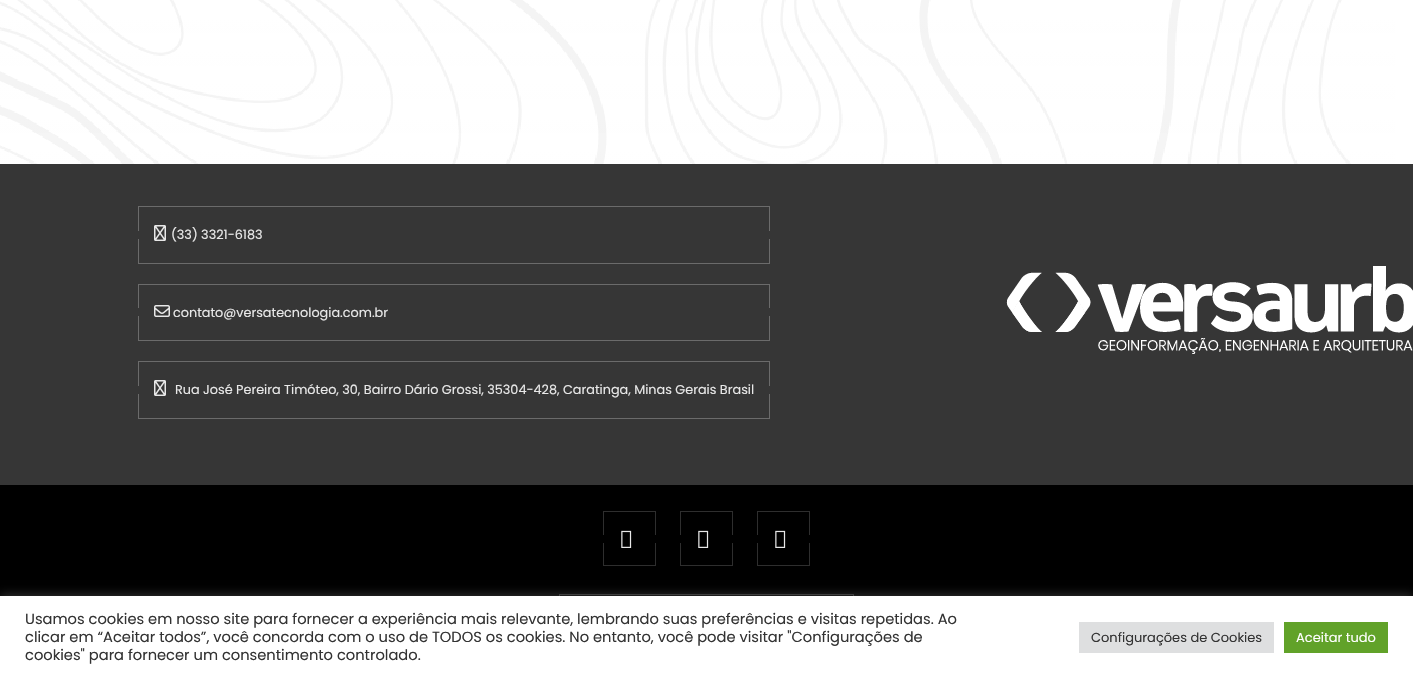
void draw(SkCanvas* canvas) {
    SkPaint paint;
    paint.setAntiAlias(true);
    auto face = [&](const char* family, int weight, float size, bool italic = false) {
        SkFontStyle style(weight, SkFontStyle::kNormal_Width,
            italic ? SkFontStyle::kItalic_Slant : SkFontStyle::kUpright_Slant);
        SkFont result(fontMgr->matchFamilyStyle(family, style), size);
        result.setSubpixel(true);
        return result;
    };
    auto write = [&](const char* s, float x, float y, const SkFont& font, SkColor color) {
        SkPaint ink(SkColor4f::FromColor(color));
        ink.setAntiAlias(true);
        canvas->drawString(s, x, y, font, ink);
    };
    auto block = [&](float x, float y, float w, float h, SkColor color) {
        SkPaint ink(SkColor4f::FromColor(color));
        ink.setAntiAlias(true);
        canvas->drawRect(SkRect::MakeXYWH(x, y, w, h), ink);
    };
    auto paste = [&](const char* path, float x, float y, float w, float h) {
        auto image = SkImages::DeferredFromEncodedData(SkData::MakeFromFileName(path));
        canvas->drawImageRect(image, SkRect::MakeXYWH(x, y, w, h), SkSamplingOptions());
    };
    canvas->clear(SK_ColorWHITE);
    paste("pic1.png", 0, 0, 1395, 164);
    block(0, 164, 1413, 321, SkColorSetRGB(54, 54, 54));
    paint.setStyle(SkPaint::kStroke_Style);
    paint.setStrokeWidth(1);
    paint.setColor(SkColorSetRGB(107, 107, 107));
    canvas->drawRect(SkRect::MakeXYWH(138.5f, 206.5f, 631, 57), paint);
    block(138, 231, 1, 8, SkColorSetRGB(54, 54, 54));
    paste("pic2.png", 154, 225, 12, 16);
    auto kFont1 = face("Poppins", 400, 12.8f);
    write("(33) 3321-6183", 171, 239, kFont1, SkColorSetRGB(232, 232, 232));
    block(769, 231, 1, 8, SkColorSetRGB(54, 54, 54));
    canvas->drawRect(SkRect::MakeXYWH(138.5f, 284.5f, 631, 56), paint);
    block(138, 308, 1, 8, SkColorSetRGB(54, 54, 54));
    paste("pic3.png", 154, 305, 16, 12);
    write("contato@versatecnologia.com.br", 173, 317, kFont1, SkColorSetRGB(232, 232, 232));
    block(769, 308, 1, 8, SkColorSetRGB(54, 54, 54));
    canvas->drawRect(SkRect::MakeXYWH(138.5f, 361.5f, 631, 57), paint);
    block(138, 386, 1, 8, SkColorSetRGB(54, 54, 54));
    paste("pic2.png", 154, 380, 12, 16);
    write("Rua José Pereira Timóteo, 30, Bairro Dário Grossi, 35304-428, Caratinga, Minas Gerais Brasil", 175, 394, kFont1, SkColorSetRGB(232, 232, 232));
    block(769, 386, 1, 8, SkColorSetRGB(54, 54, 54));
    paste("pic4.png", 1006, 266, 407, 88);
    block(0, 485, 1413, 111, SK_ColorBLACK);
    paint.setColor(SkColorSetRGB(46, 46, 46));
    canvas->drawRect(SkRect::MakeXYWH(603.5f, 511.5f, 52, 54), paint);
    block(603, 535, 1, 8, SK_ColorBLACK);
    paste("pic5.png", 621, 530, 11, 18);
    block(655, 535, 1, 8, SK_ColorBLACK);
    canvas->drawRect(SkRect::MakeXYWH(680.5f, 511.5f, 52, 54), paint);
    block(680, 535, 1, 8, SK_ColorBLACK);
    paste("pic5.png", 698, 530, 11, 18);
    block(732, 535, 1, 8, SK_ColorBLACK);
    canvas->drawRect(SkRect::MakeXYWH(757.5f, 511.5f, 52, 54), paint);
    block(757, 535, 1, 8, SK_ColorBLACK);
    paste("pic5.png", 775, 530, 11, 18);
    block(809, 535, 1, 8, SK_ColorBLACK);
    canvas->drawRect(SkRect::MakeXYWH(559.5f, 594.5f, 294, 57), paint);
    paint.setStyle(SkPaint::kFill_Style);
    paint.setColor(SkColorSetARGB(77, 172, 171, 171));
    paint.setMaskFilter(SkMaskFilter::MakeBlur(kNormal_SkBlurStyle, 5));
    canvas->drawRect(SkRect::MakeXYWH(0, 595, 1413, 82), paint);
    paint.setMaskFilter(nullptr);
    block(0, 596, 1413, 82, SK_ColorWHITE);
    auto kFont2 = face("Poppins", 400, 14.67f);
    write("Usamos cookies em nosso site para fornecer a experiência mais relevante, lembrando suas preferências e visitas repetidas. Ao", 25, 624, kFont2, SkColorSetRGB(51, 51, 51));
    write("clicar em “Aceitar todos”, você concorda com o uso de TODOS os cookies. No entanto, você pode visitar \"Configurações de", 25, 642, kFont2, SkColorSetRGB(51, 51, 51));
    write("cookies\" para fornecer um consentimento controlado.", 25, 660, kFont2, SkColorSetRGB(51, 51, 51));
    block(1079, 622, 195, 31, SkColorSetRGB(222, 223, 224));
    auto kFont3 = face("Poppins", 400, 13);
    write("Configurações de Cookies", 1091, 642, kFont3, SkColorSetRGB(51, 51, 51));
    block(1284, 622, 104, 31, SkColorSetRGB(97, 162, 41));
    write("Aceitar tudo", 1296, 642, kFont3, SK_ColorWHITE);
}
